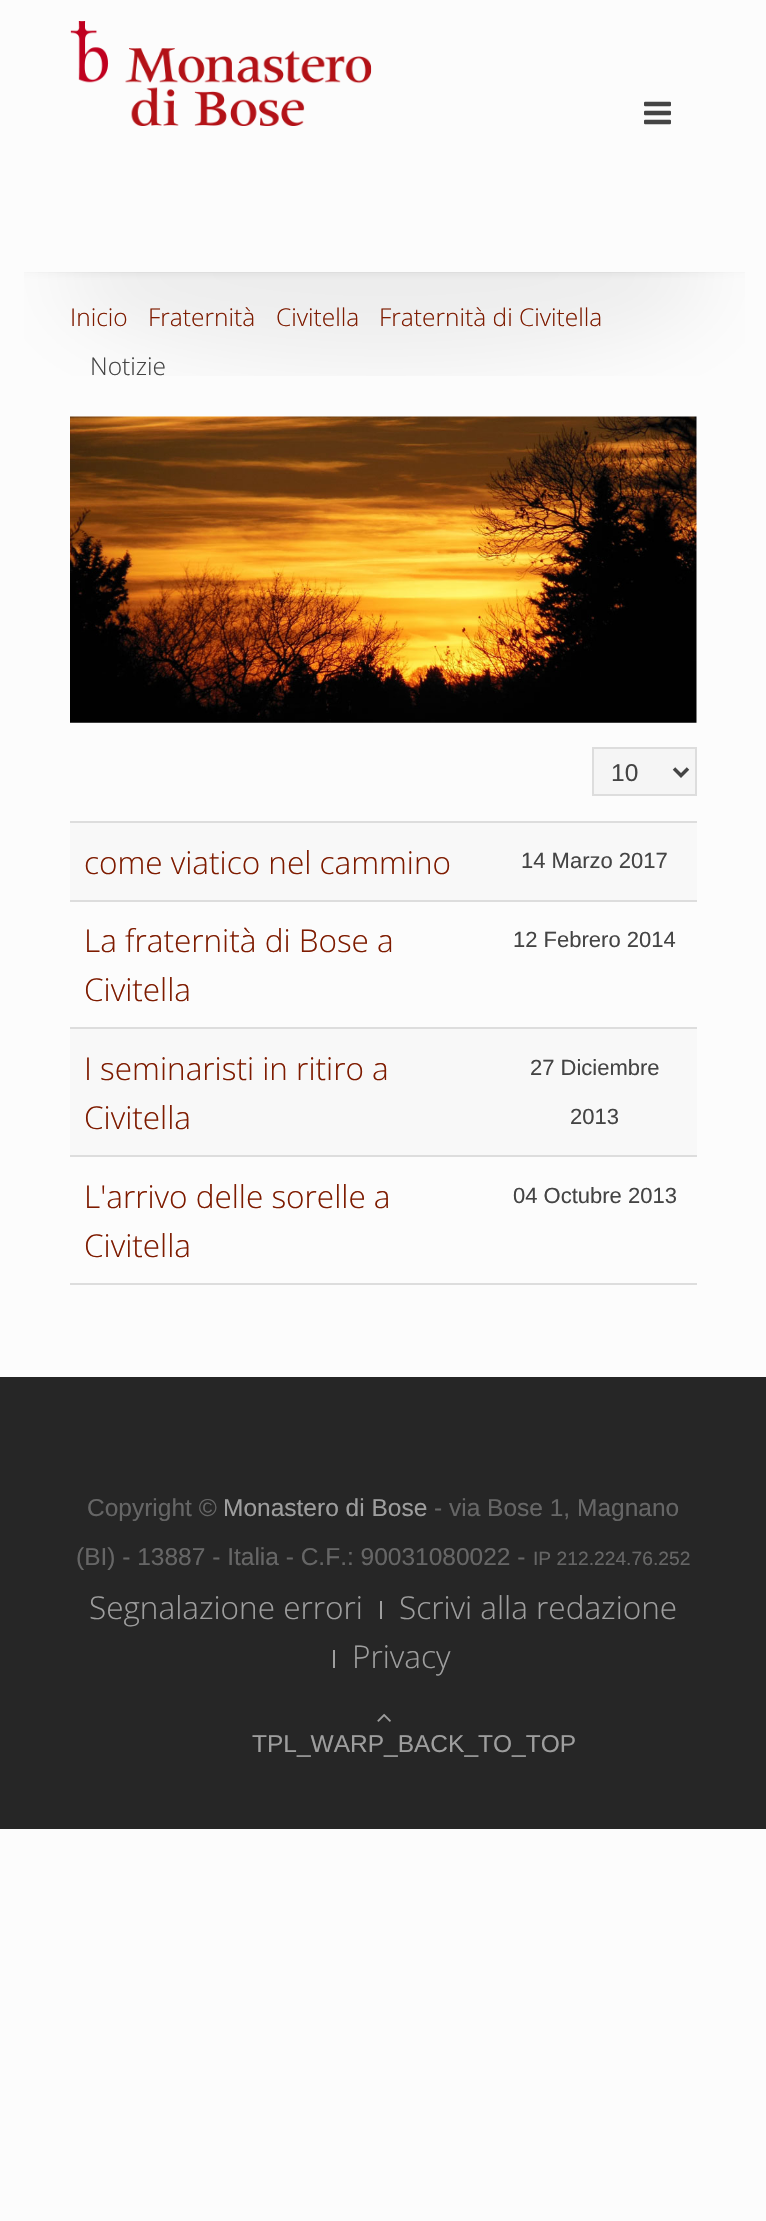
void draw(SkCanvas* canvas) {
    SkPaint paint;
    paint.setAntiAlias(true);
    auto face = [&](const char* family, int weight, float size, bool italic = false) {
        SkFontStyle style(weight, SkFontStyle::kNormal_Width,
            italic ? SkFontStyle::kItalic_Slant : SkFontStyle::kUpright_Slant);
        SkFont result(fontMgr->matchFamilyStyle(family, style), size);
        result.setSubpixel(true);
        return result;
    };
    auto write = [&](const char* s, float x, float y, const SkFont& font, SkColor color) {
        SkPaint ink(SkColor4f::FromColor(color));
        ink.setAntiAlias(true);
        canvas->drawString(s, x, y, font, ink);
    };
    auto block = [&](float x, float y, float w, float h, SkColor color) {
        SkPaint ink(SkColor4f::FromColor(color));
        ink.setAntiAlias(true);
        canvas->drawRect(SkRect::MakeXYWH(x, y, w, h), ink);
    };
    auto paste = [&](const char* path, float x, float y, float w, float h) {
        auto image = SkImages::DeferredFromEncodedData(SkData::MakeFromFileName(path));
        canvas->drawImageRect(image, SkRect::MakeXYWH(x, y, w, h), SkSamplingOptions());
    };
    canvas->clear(SkColorSetRGB(252, 252, 252));
    paste("pic1.png", 70, 21, 302, 105);
    paste("pic2.png", 644, 101, 27, 24);
    paste("pic3.png", 24, 272, 721, 104);
    auto kFont1 = face("Open Sans", 300, 24.5f);
    write("Inicio", 70, 326, kFont1, SkColorSetRGB(126, 27, 0));
    write("Fraternità", 148, 326, kFont1, SkColorSetRGB(126, 27, 0));
    write("Civitella", 276, 326, kFont1, SkColorSetRGB(126, 27, 0));
    write("Fraternità di Civitella", 379, 326, kFont1, SkColorSetRGB(126, 27, 0));
    write("Notizie", 90, 375, kFont1, SkColorSetRGB(68, 68, 68));
    paste("pic4.png", 70, 416, 627, 307);
    paint.setColor(SkColorSetRGB(245, 245, 245));
    canvas->drawRect(SkRect::MakeXYWH(593, 748, 103, 47), paint);
    paint.setStyle(SkPaint::kStroke_Style);
    paint.setStrokeWidth(2);
    paint.setColor(SkColorSetRGB(221, 221, 221));
    canvas->drawRect(SkRect::MakeXYWH(593, 748, 103, 47), paint);
    paint.setStrokeWidth(3.5f);
    paint.setColor(SkColorSetRGB(68, 68, 68));
    canvas->drawPath(SkPathBuilder().moveTo(674, 768.5f).lineTo(681, 775.5f).lineTo(688, 768.5f).detach(), paint);
    auto kFont2 = face("Liberation Sans", 400, 24.5f);
    write("10", 611, 781, kFont2, SkColorSetRGB(68, 68, 68));
    block(70, 821, 627, 2, SkColorSetRGB(221, 221, 221));
    block(70, 1283, 627, 2, SkColorSetRGB(221, 221, 221));
    block(70, 823, 627, 77, SkColorSetRGB(248, 248, 248));
    auto kFont3 = face("Open Sans", 300, 31.5f);
    write("come viatico nel cammino", 84, 874, kFont3, SkColorSetRGB(126, 27, 0));
    auto kFont4 = face("Liberation Sans", 400, 22);
    write("14 Marzo 2017", 521, 868, kFont4, SkColorSetRGB(68, 68, 68));
    block(70, 900, 627, 2, SkColorSetRGB(221, 221, 221));
    write("La fraternità di Bose a", 84, 952, kFont3, SkColorSetRGB(126, 27, 0));
    write("Civitella", 84, 1001, kFont3, SkColorSetRGB(126, 27, 0));
    write("12 Febrero 2014", 513, 947, kFont4, SkColorSetRGB(68, 68, 68));
    block(70, 1029, 627, 126, SkColorSetRGB(248, 248, 248));
    block(70, 1027, 627, 2, SkColorSetRGB(221, 221, 221));
    write("I seminaristi in ritiro a", 84, 1080, kFont3, SkColorSetRGB(126, 27, 0));
    write("Civitella", 84, 1129, kFont3, SkColorSetRGB(126, 27, 0));
    write("27 Diciembre", 530, 1075, kFont4, SkColorSetRGB(68, 68, 68));
    write("2013", 570, 1124, kFont4, SkColorSetRGB(68, 68, 68));
    block(70, 1155, 627, 2, SkColorSetRGB(221, 221, 221));
    write("L'arrivo delle sorelle a", 84, 1208, kFont3, SkColorSetRGB(126, 27, 0));
    write("Civitella", 84, 1257, kFont3, SkColorSetRGB(126, 27, 0));
    write("04 Octubre 2013", 513, 1203, kFont4, SkColorSetRGB(68, 68, 68));
    block(0, 1377, 766, 452, SkColorSetRGB(38, 38, 38));
    write("Copyright ©", 87, 1516, kFont2, SkColorSetRGB(102, 102, 102));
    write("Monastero di Bose", 223, 1516, kFont2, SkColorSetRGB(158, 158, 158));
    write("- via Bose 1, Magnano", 434, 1516, kFont2, SkColorSetRGB(102, 102, 102));
    write("(BI) - 13887 - Italia - C.F.: 90031080022 -", 76, 1565, kFont2, SkColorSetRGB(102, 102, 102));
    auto kFont5 = face("Liberation Sans", 400, 19.25f);
    write("IP 212.224.76.252", 533, 1565, kFont5, SkColorSetRGB(102, 102, 102));
    write("Segnalazione errori", 89, 1619, kFont3, SkColorSetRGB(158, 158, 158));
    block(380, 1601, 2, 18, SkColorSetRGB(158, 158, 158));
    write("Scrivi alla redazione", 399, 1619, kFont3, SkColorSetRGB(158, 158, 158));
    block(333, 1650, 2, 18, SkColorSetRGB(158, 158, 158));
    write("Privacy", 352, 1668, kFont3, SkColorSetRGB(158, 158, 158));
    paste("pic5.png", 377, 1713, 14, 9);
    write("TPL_WARP_BACK_TO_TOP", 252, 1752, kFont2, SkColorSetRGB(158, 158, 158));
}
